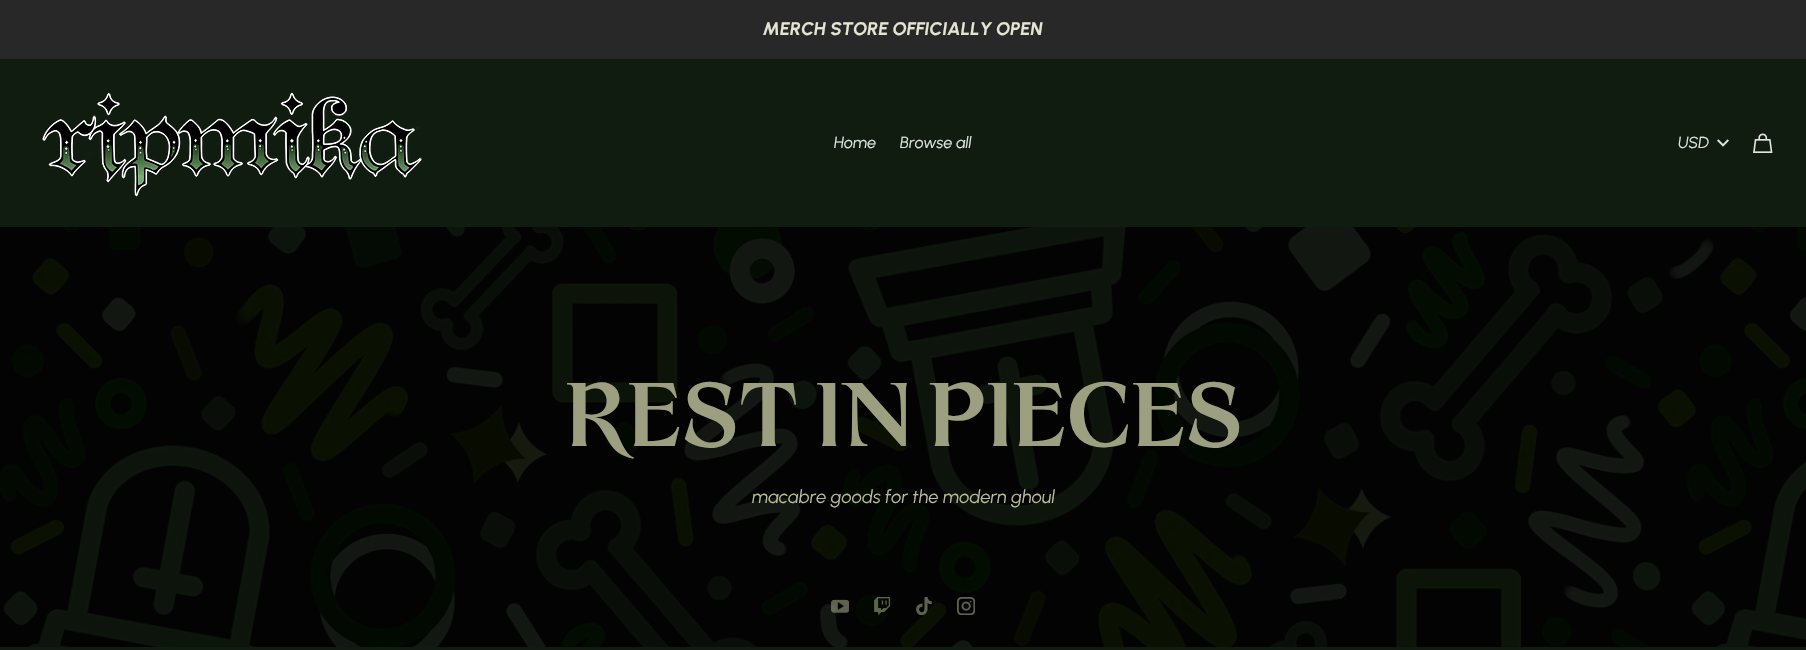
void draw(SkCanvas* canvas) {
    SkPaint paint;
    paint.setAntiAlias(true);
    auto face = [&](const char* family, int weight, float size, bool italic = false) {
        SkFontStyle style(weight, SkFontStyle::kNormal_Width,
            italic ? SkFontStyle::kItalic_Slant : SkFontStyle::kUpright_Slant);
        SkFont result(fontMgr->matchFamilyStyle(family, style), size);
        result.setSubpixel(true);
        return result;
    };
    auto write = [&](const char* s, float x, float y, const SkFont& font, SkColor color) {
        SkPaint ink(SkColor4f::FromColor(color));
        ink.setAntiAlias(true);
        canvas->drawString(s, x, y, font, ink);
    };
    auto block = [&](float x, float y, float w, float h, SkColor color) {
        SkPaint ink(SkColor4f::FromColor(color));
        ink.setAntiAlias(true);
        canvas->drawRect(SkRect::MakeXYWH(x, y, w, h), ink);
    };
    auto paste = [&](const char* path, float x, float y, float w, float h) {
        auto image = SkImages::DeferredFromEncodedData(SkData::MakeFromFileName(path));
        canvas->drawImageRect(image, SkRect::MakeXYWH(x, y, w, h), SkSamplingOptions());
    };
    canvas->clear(SkColorSetRGB(16, 28, 16));
    block(0, 227, 1806, 420, SkColorSetRGB(2, 3, 2));
    block(0, 0, 1806, 59, SkColorSetRGB(40, 40, 40));
    auto kFont1 = face("Urbanist", 700, 18.25f, true);
    write("MERCH STORE OFFICIALLY OPEN", 763, 35, kFont1, SkColorSetRGB(228, 228, 210));
    paste("pic1.png", 42, 92, 381, 105);
    auto kFont2 = face("Urbanist", 400, 16, true);
    write("Home", 834, 148, kFont2, SkColorSetRGB(226, 226, 226));
    write("Browse all", 900, 148, kFont2, SkColorSetRGB(226, 226, 226));
    write("USD", 1678, 148, kFont2, SkColorSetRGB(226, 226, 226));
    paste("pic2.png", 1717, 139, 12, 8);
    paste("pic3.png", 1753, 133, 20, 20);
    paste("pic4.png", 0, 227, 1806, 420);
    auto kFont3 = face("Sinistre", 700, 87.25f);
    write("REST IN PIECES", 565, 446, kFont3, SkColorSetRGB(156, 160, 129));
    auto kFont4 = face("Urbanist", 400, 18.25f, true);
    write("macabre goods for the modern ghoul", 752, 503, kFont4, SkColorSetRGB(185, 189, 155));
    paste("pic5.png", 831, 599, 18, 14);
    paste("pic6.png", 874, 597, 17, 18);
    paste("pic7.png", 916, 597, 16, 18);
    paste("pic8.png", 957, 597, 18, 18);
}
